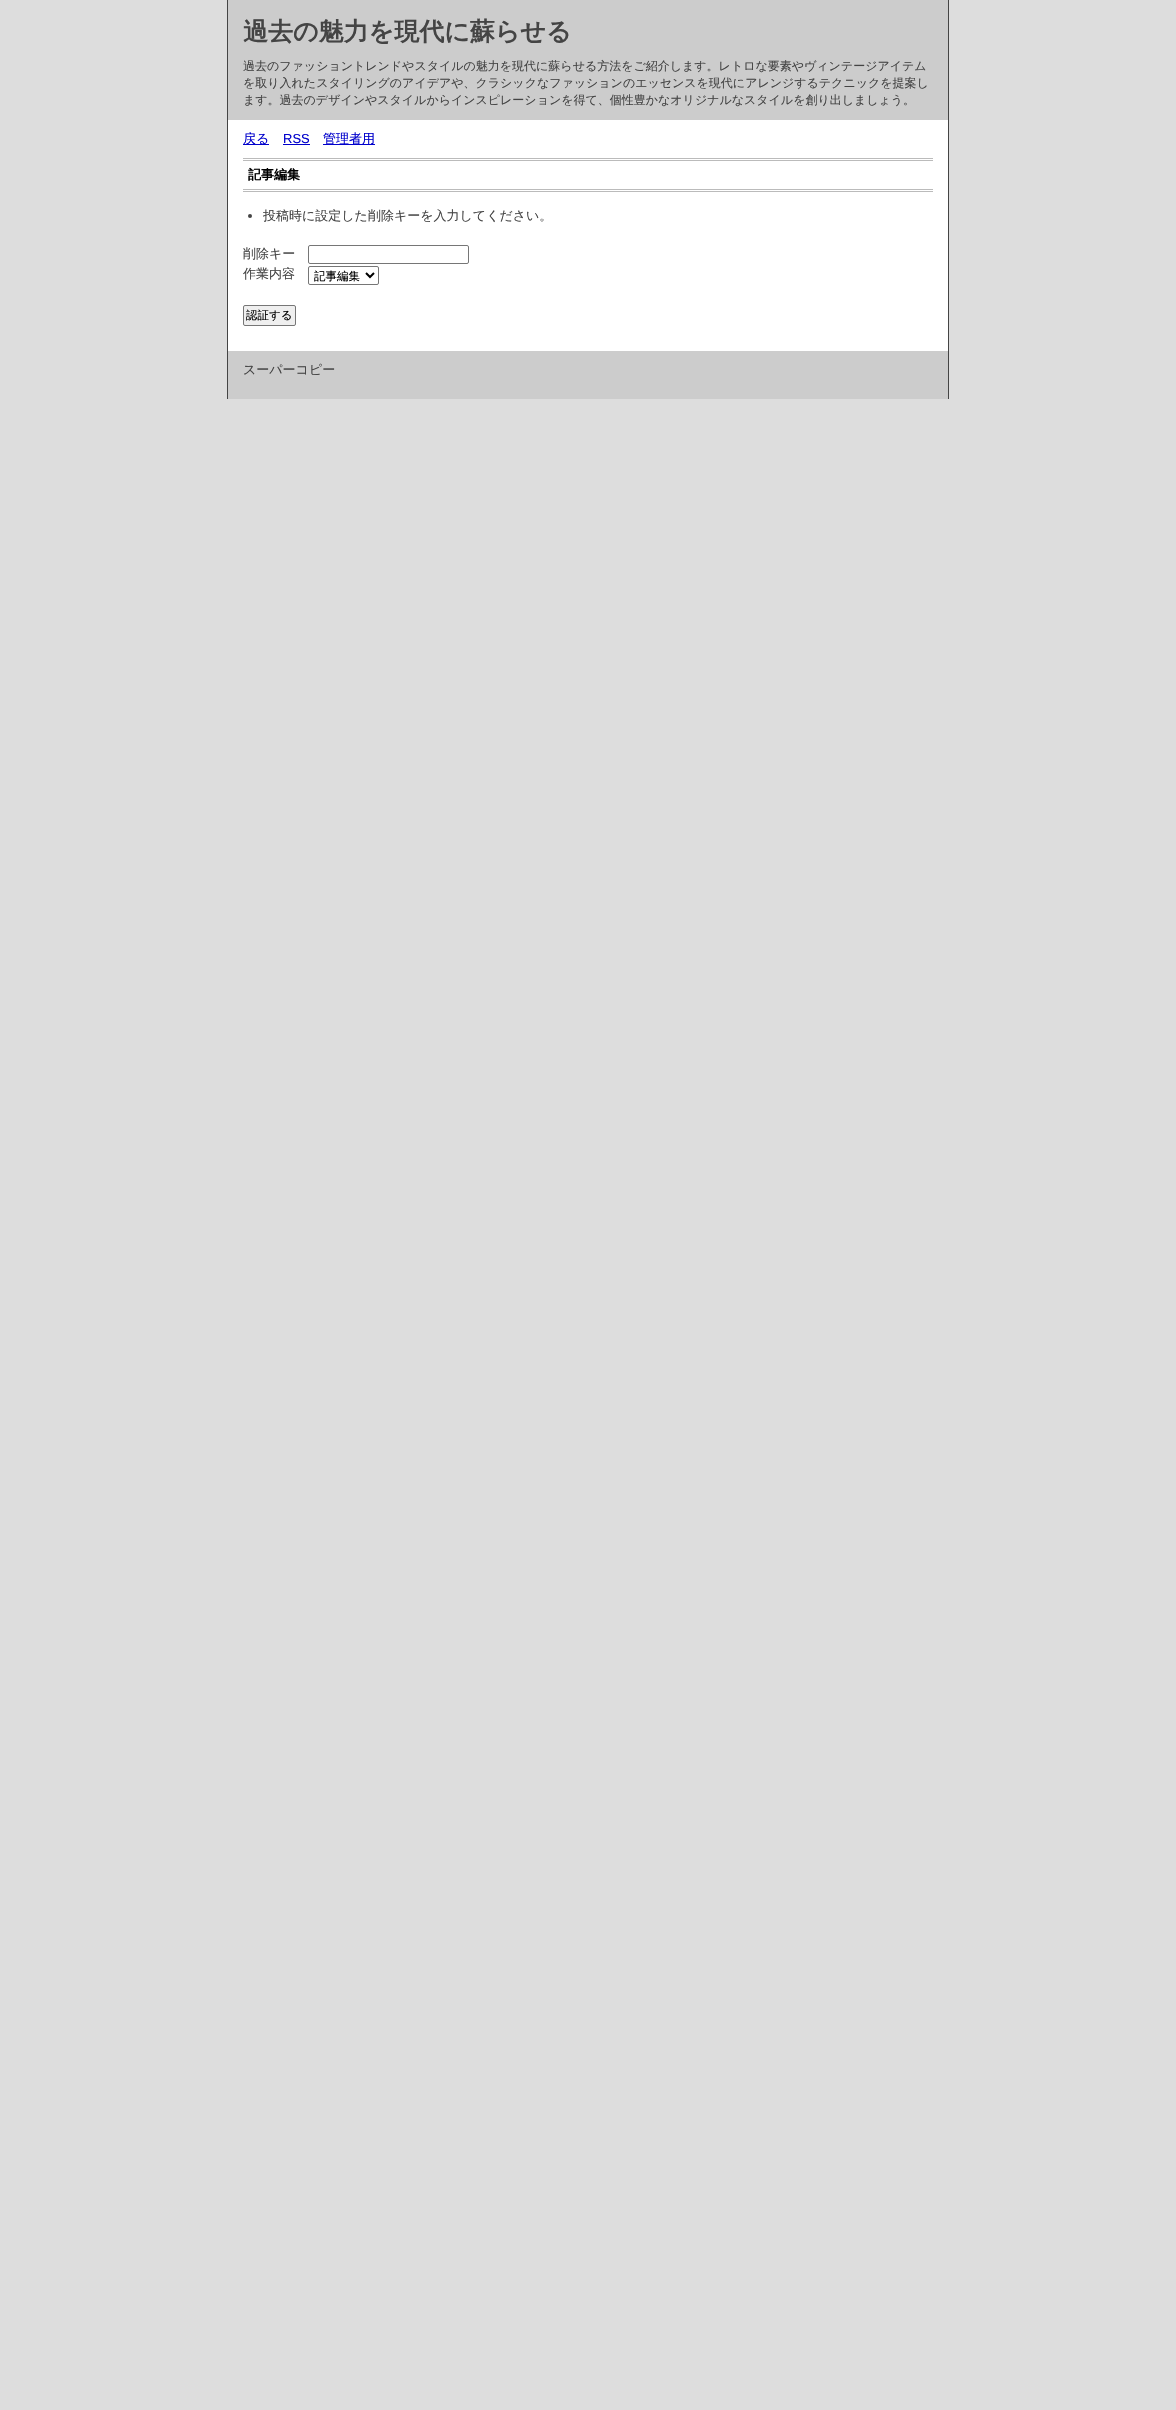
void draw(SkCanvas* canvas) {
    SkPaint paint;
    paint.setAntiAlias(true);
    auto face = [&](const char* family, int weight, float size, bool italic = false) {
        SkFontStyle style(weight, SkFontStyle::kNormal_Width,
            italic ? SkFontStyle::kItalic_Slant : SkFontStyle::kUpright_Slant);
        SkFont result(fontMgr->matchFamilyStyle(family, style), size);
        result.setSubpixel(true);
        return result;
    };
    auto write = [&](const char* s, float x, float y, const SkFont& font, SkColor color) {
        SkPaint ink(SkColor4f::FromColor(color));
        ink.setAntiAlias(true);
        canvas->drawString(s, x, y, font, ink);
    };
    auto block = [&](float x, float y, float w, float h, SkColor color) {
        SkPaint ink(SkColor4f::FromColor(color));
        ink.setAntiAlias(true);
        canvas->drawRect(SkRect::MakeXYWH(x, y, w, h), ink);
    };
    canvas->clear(SkColorSetRGB(221, 221, 221));
    block(228, 120, 720, 231, SK_ColorWHITE);
    block(948, 0, 1, 399, SkColorSetRGB(68, 68, 68));
    block(227, 0, 1, 399, SkColorSetRGB(68, 68, 68));
    block(228, 0, 720, 120, SkColorSetRGB(204, 204, 204));
    auto kFont1 = face("WenQuanYi Zen Hei", 700, 25);
    write("過去の魅力を現代に蘇らせる", 243, 40, kFont1, SkColorSetRGB(68, 68, 68));
    auto kFont2 = face("WenQuanYi Zen Hei", 500, 12);
    write("過去のファッショントレンドやスタイルの魅力を現代に蘇らせる方法をご紹介します。レトロな要素やヴィンテージアイテム", 243, 70, kFont2, SkColorSetRGB(68, 68, 68));
    write("を取り入れたスタイリングのアイデアや、クラシックなファッションのエッセンスを現代にアレンジするテクニックを提案し", 243, 87, kFont2, SkColorSetRGB(68, 68, 68));
    write("ます。過去のデザインやスタイルからインスピレーションを得て、個性豊かなオリジナルなスタイルを創り出しましょう。", 243, 104, kFont2, SkColorSetRGB(68, 68, 68));
    block(243, 144, 26, 1, SkColorSetRGB(0, 0, 204));
    auto kFont3 = face("WenQuanYi Zen Hei", 500, 13);
    write("戻る", 243, 143, kFont3, SkColorSetRGB(0, 0, 204));
    auto kFont4 = face("Liberation Sans", 400, 13);
    write("RSS", 283, 143, kFont4, SkColorSetRGB(0, 0, 204));
    block(283, 144, 27, 1, SkColorSetRGB(0, 0, 204));
    block(323, 144, 52, 1, SkColorSetRGB(0, 0, 204));
    write("管理者用", 323, 143, kFont3, SkColorSetRGB(0, 0, 204));
    block(243, 158, 690, 1, SkColorSetRGB(187, 187, 187));
    block(243, 160, 690, 1, SkColorSetRGB(187, 187, 187));
    block(243, 189, 690, 1, SkColorSetRGB(187, 187, 187));
    block(243, 191, 690, 1, SkColorSetRGB(187, 187, 187));
    auto kFont5 = face("WenQuanYi Zen Hei", 700, 13);
    write("記事編集", 248, 179, kFont5, SK_ColorBLACK);
    paint.setColor(SkColorSetRGB(68, 68, 68));
    canvas->drawCircle(250, 216, 2, paint);
    write("投稿時に設定した削除キーを入力してください。", 263, 220, kFont3, SkColorSetRGB(68, 68, 68));
    write("削除キー", 243, 258, kFont3, SkColorSetRGB(68, 68, 68));
    paint.setStyle(SkPaint::kStroke_Style);
    paint.setStrokeWidth(1);
    paint.setColor(SkColorSetRGB(118, 118, 118));
    canvas->drawRoundRect(SkRect::MakeXYWH(308.5f, 245.5f, 160, 18), 1.5f, 1.5f, paint);
    write("作業内容", 243, 278, kFont3, SkColorSetRGB(68, 68, 68));
    canvas->drawRoundRect(SkRect::MakeXYWH(308.5f, 266.5f, 70, 18), 1.5f, 1.5f, paint);
    paint.setStrokeWidth(2);
    paint.setColor(SK_ColorBLACK);
    canvas->drawPath(SkPathBuilder().moveTo(366, 273).lineTo(370, 277).lineTo(374, 273).detach(), paint);
    auto kFont6 = face("WenQuanYi Zen Hei", 500, 11.5f);
    write("記事編集", 314, 280, kFont6, SK_ColorBLACK);
    paint.setStyle(SkPaint::kFill_Style);
    paint.setColor(SkColorSetRGB(239, 239, 239));
    canvas->drawRoundRect(SkRect::MakeXYWH(243.5f, 305.5f, 52, 20), 1.5f, 1.5f, paint);
    paint.setStyle(SkPaint::kStroke_Style);
    paint.setStrokeWidth(1);
    paint.setColor(SkColorSetRGB(118, 118, 118));
    canvas->drawRoundRect(SkRect::MakeXYWH(243.5f, 305.5f, 52, 20), 1.5f, 1.5f, paint);
    write("認証する", 246, 319, kFont6, SK_ColorBLACK);
    block(228, 351, 720, 48, SkColorSetRGB(204, 204, 204));
    write("スーパーコピー", 243, 374, kFont3, SkColorSetRGB(68, 68, 68));
}
